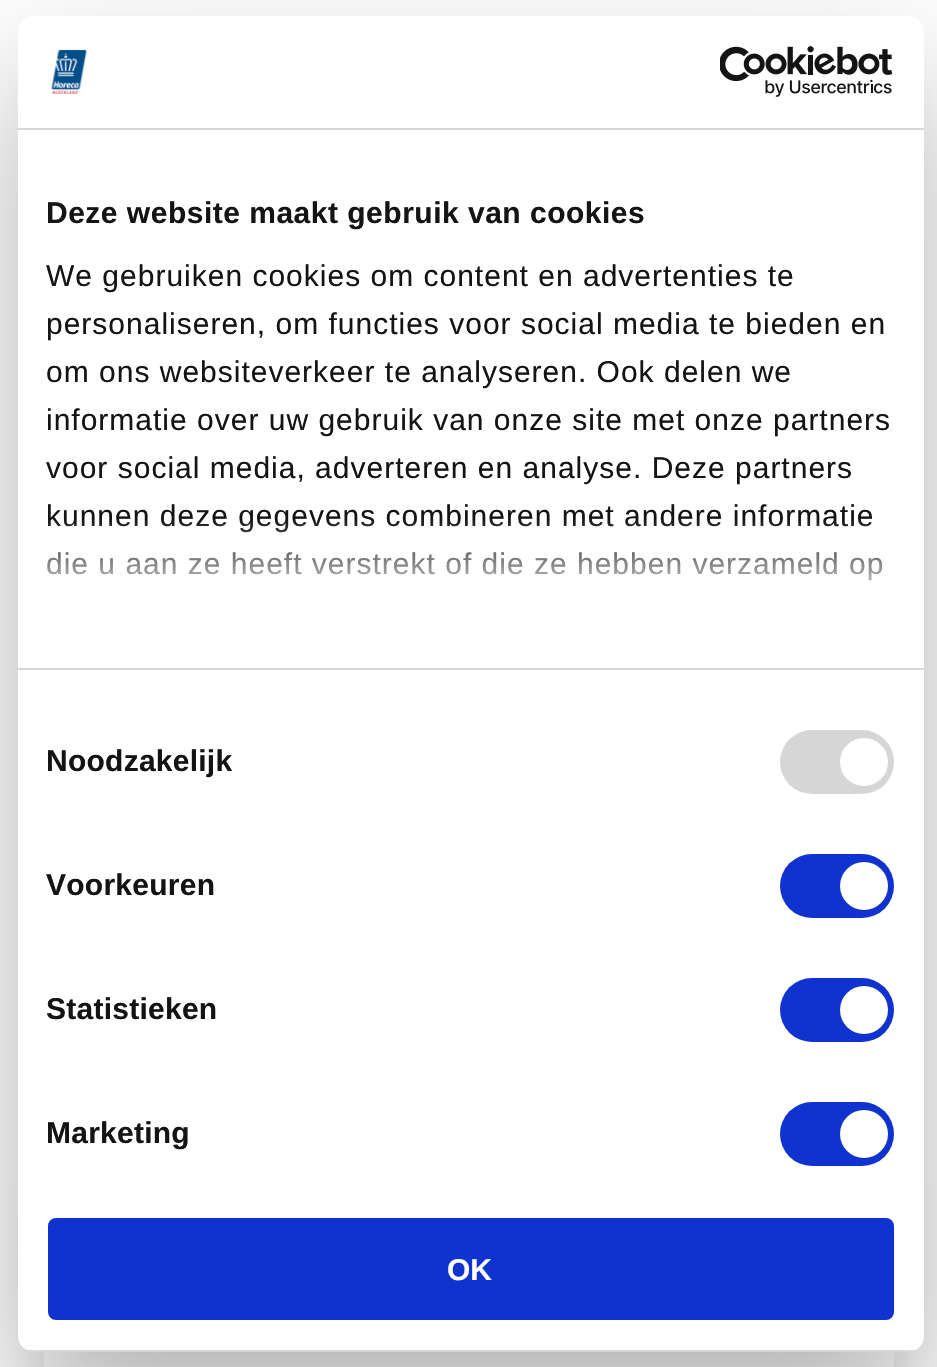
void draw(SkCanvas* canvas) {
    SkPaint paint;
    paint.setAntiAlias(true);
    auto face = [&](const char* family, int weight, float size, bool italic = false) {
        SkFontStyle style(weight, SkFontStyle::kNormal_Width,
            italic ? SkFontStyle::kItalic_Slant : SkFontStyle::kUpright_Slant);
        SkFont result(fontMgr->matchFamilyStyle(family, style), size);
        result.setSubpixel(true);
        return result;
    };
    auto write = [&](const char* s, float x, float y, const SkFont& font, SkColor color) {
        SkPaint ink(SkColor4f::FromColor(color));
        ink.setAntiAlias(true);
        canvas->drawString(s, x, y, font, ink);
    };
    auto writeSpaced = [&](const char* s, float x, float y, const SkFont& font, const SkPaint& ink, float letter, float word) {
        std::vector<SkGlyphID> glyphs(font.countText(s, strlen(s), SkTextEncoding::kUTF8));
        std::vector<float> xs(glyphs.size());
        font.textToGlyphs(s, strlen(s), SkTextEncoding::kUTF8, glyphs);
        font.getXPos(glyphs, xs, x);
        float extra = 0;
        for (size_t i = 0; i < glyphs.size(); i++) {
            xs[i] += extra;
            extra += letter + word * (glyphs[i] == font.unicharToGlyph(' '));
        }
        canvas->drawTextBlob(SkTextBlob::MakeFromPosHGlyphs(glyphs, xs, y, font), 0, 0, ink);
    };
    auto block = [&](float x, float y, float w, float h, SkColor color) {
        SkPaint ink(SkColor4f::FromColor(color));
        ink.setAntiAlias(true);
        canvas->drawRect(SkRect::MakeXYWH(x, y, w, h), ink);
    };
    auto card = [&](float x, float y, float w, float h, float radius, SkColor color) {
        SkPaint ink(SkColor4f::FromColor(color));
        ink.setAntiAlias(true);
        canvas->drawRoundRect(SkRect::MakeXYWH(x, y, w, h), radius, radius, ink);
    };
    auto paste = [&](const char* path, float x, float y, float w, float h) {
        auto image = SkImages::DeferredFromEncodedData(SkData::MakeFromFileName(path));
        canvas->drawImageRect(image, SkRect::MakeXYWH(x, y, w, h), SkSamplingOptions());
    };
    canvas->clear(SK_ColorWHITE);
    paint.setColor(SkColorSetARGB(26, 0, 0, 0));
    paint.setMaskFilter(SkMaskFilter::MakeBlur(kNormal_SkBlurStyle, 21));
    canvas->drawRoundRect(SkRect::MakeXYWH(44, 1214, 850, 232), 16, 16, paint);
    paint.setMaskFilter(nullptr);
    block(44, 1352, 850, 15, SK_ColorWHITE);
    paint.setColor(SkColorSetARGB(77, 0, 0, 0));
    paint.setMaskFilter(SkMaskFilter::MakeBlur(kNormal_SkBlurStyle, 68));
    canvas->drawRoundRect(SkRect::MakeXYWH(18, 80, 906, 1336), 16, 16, paint);
    paint.setMaskFilter(nullptr);
    card(18, 16, 906, 1336, 16, SK_ColorWHITE);
    block(18, 128, 906, 2, SkColorSetRGB(214, 214, 214));
    paste("pic1.png", 51, 49, 36, 45);
    paste("pic2.png", 720, 46, 173, 51);
    block(18, 668, 906, 2, SkColorSetRGB(214, 214, 214));
    auto kFont1 = face("Liberation Sans", 700, 30);
    paint.setColor(SkColorSetRGB(20, 20, 20));
    writeSpaced("Deze website maakt gebruik van cookies", 46, 223, kFont1, paint, 0.5f, 0);
    auto kFont2 = face("Liberation Sans", 400, 30);
    writeSpaced("We gebruiken cookies om content en advertenties te", 46, 286, kFont2, paint, 1, 0);
    writeSpaced("personaliseren, om functies voor social media te bieden en", 46, 334, kFont2, paint, 1, 0);
    writeSpaced("om ons websiteverkeer te analyseren. Ook delen we", 46, 382, kFont2, paint, 1, 0);
    writeSpaced("informatie over uw gebruik van onze site met onze partners", 46, 430, kFont2, paint, 1, 0);
    writeSpaced("voor social media, adverteren en analyse. Deze partners", 46, 478, kFont2, paint, 1, 0);
    writeSpaced("kunnen deze gegevens combineren met andere informatie", 46, 526, kFont2, paint, 1, 0);
    writeSpaced("die u aan ze heeft verstrekt of die ze hebben verzameld op", 46, 574, kFont2, paint, 1, 0);
    {
        const SkColor colors[] = {SK_ColorWHITE, SkColorSetARGB(204, 255, 255, 255), SkColorSetARGB(0, 255, 255, 255)};
        const float stops[] = {0, 0.5f, 1};
        const SkPoint ends[] = {{457, 668}, {457, 518}};
        paint.setShader(SkGradientShader::MakeLinear(ends, colors, stops, 3, SkTileMode::kClamp));
        paint.setAlpha(255);
    }
    canvas->drawRect(SkRect::MakeXYWH(47, 520, 836, 61), paint);
    paint.setShader(nullptr);
    paint.setColor(SkColorSetRGB(20, 20, 20));
    writeSpaced("Noodzakelijk", 46, 771, kFont1, paint, 0.25f, 0);
    card(780, 730, 114, 64, 32, SkColorSetRGB(214, 214, 214));
    paint.setColor(SK_ColorWHITE);
    canvas->drawCircle(864, 762, 24, paint);
    paint.setColor(SkColorSetRGB(20, 20, 20));
    writeSpaced("Voorkeuren", 46, 895, kFont1, paint, 0.25f, 0);
    card(780, 854, 114, 64, 32, SkColorSetRGB(16, 50, 207));
    paint.setColor(SK_ColorWHITE);
    canvas->drawCircle(864, 886, 24, paint);
    paint.setColor(SkColorSetRGB(20, 20, 20));
    writeSpaced("Statistieken", 46, 1019, kFont1, paint, 0.25f, 0);
    card(780, 978, 114, 64, 32, SkColorSetRGB(16, 50, 207));
    paint.setColor(SK_ColorWHITE);
    canvas->drawCircle(864, 1010, 24, paint);
    paint.setColor(SkColorSetRGB(20, 20, 20));
    writeSpaced("Marketing", 46, 1143, kFont1, paint, 0.25f, 0);
    card(780, 1102, 114, 64, 32, SkColorSetRGB(16, 50, 207));
    paint.setColor(SK_ColorWHITE);
    canvas->drawCircle(864, 1134, 24, paint);
    canvas->save();
    canvas->clipPath(SkPathBuilder().moveTo(34, 16).lineTo(908, 16).cubicTo(917, 16, 924, 23, 924, 32).lineTo(924, 1336).cubicTo(924, 1345, 917, 1352, 908, 1352).lineTo(34, 1352).cubicTo(25, 1352, 18, 1345, 18, 1336).lineTo(18, 32).cubicTo(18, 23, 25, 16, 34, 16).close().detach(), true);
    block(18, 1350, 906, 2, SkColorSetRGB(214, 214, 214));
    canvas->restore();
    paint.setColor(SkColorSetRGB(16, 50, 207));
    canvas->drawRoundRect(SkRect::MakeXYWH(50, 1220, 842, 98), 6, 6, paint);
    paint.setStyle(SkPaint::kStroke_Style);
    paint.setStrokeWidth(4);
    canvas->drawRoundRect(SkRect::MakeXYWH(50, 1220, 842, 98), 6, 6, paint);
    write("OK", 447, 1280, kFont1, SK_ColorWHITE);
}
